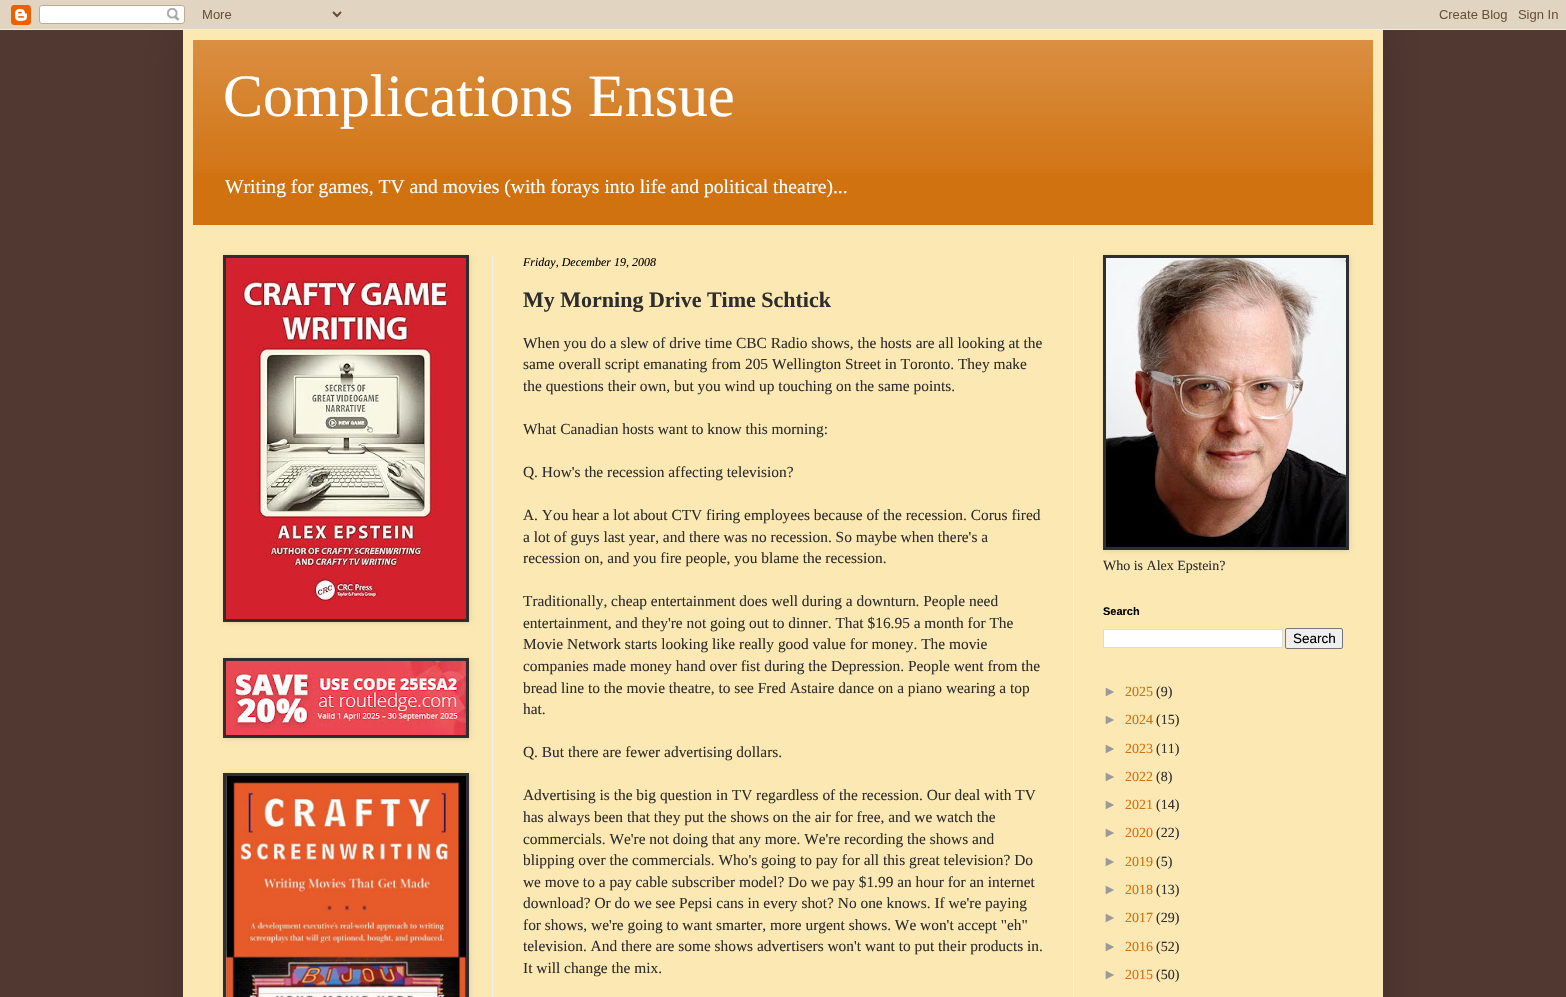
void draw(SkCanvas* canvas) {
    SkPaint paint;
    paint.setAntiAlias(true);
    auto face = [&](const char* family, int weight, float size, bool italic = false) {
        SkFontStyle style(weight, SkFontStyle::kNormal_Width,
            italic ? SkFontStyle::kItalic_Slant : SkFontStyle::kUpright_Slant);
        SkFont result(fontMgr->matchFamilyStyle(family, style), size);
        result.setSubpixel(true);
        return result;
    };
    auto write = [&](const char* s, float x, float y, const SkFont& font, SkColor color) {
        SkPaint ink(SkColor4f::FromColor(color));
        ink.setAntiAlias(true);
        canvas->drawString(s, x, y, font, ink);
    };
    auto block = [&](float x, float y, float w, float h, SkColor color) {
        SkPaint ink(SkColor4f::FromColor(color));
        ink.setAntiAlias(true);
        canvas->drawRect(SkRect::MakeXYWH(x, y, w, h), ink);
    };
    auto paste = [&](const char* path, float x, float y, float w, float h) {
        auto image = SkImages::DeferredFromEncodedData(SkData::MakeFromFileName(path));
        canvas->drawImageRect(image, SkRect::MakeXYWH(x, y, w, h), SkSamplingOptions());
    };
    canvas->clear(SkColorSetRGB(81, 56, 49));
    paint.setColor(SkColorSetARGB(38, 0, 0, 0));
    paint.setMaskFilter(SkMaskFilter::MakeBlur(kNormal_SkBlurStyle, 20));
    canvas->drawRect(SkRect::MakeXYWH(183, 30, 1200, 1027), paint);
    paint.setMaskFilter(nullptr);
    paste("pic1.png", 0, 0, 1566, 30);
    block(183, 30, 1200, 967, SkColorSetRGB(252, 232, 178));
    block(193, 40, 1180, 185, SkColorSetRGB(209, 114, 17));
    paste("pic2.png", 193, 40, 1180, 133);
    auto kFont1 = face("Liberation Serif", 400, 60);
    write("Complications Ensue", 223, 116, kFont1, SK_ColorWHITE);
    auto kFont2 = face("Liberation Serif", 400, 19.6f);
    write("Writing for games, TV and movies (with forays into life and political theatre)...", 225, 193, kFont2, SK_ColorWHITE);
    block(492, 255, 1, 742, SkColorSetRGB(239, 239, 239));
    block(1073, 255, 1, 742, SkColorSetRGB(239, 239, 239));
    paint.setColor(SkColorSetARGB(26, 0, 0, 0));
    paint.setMaskFilter(SkMaskFilter::MakeBlur(kNormal_SkBlurStyle, 2.5f));
    canvas->drawRect(SkRect::MakeXYWH(224, 256, 246, 367), paint);
    paint.setMaskFilter(nullptr);
    block(223, 255, 246, 367, SkColorSetRGB(46, 46, 46));
    paste("pic3.png", 226, 258, 240, 361);
    paint.setMaskFilter(SkMaskFilter::MakeBlur(kNormal_SkBlurStyle, 2.5f));
    canvas->drawRect(SkRect::MakeXYWH(224, 659, 246, 80), paint);
    paint.setMaskFilter(nullptr);
    block(223, 658, 246, 80, SkColorSetRGB(46, 46, 46));
    paste("pic4.png", 226, 661, 240, 74);
    paint.setMaskFilter(SkMaskFilter::MakeBlur(kNormal_SkBlurStyle, 2.5f));
    canvas->drawRect(SkRect::MakeXYWH(224, 774, 246, 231), paint);
    paint.setMaskFilter(nullptr);
    block(223, 773, 246, 224, SkColorSetRGB(46, 46, 46));
    paste("pic5.png", 226, 776, 240, 221);
    auto kFont3 = face("Liberation Serif", 400, 12, true);
    write("Friday, December 19, 2008", 523, 266, kFont3, SK_ColorBLACK);
    auto kFont4 = face("Liberation Serif", 700, 22);
    write("My Morning Drive Time Schtick", 523, 307, kFont4, SkColorSetRGB(46, 46, 46));
    auto kFont5 = face("Liberation Serif", 400, 15.4f);
    write("When you do a slew of drive time CBC Radio shows, the hosts are all looking at the", 523, 348, kFont5, SkColorSetRGB(46, 46, 46));
    write("same overall script emanating from 205 Wellington Street in Toronto. They make", 523, 369, kFont5, SkColorSetRGB(46, 46, 46));
    write("the questions their own, but you wind up touching on the same points.", 523, 391, kFont5, SkColorSetRGB(46, 46, 46));
    write("What Canadian hosts want to know this morning:", 523, 434, kFont5, SkColorSetRGB(46, 46, 46));
    write("Q. How's the recession affecting television?", 523, 477, kFont5, SkColorSetRGB(46, 46, 46));
    write("A. You hear a lot about CTV firing employees because of the recession. Corus fired", 523, 520, kFont5, SkColorSetRGB(46, 46, 46));
    write("a lot of guys last year, and there was no recession. So maybe when there's a", 523, 542, kFont5, SkColorSetRGB(46, 46, 46));
    write("recession on, and you fire people, you blame the recession.", 523, 563, kFont5, SkColorSetRGB(46, 46, 46));
    write("Traditionally, cheap entertainment does well during a downturn. People need", 523, 606, kFont5, SkColorSetRGB(46, 46, 46));
    write("entertainment, and they're not going out to dinner. That $16.95 a month for The", 523, 628, kFont5, SkColorSetRGB(46, 46, 46));
    write("Movie Network starts looking like really good value for money. The movie", 523, 649, kFont5, SkColorSetRGB(46, 46, 46));
    write("companies made money hand over fist during the Depression. People went from the", 523, 671, kFont5, SkColorSetRGB(46, 46, 46));
    write("bread line to the movie theatre, to see Fred Astaire dance on a piano wearing a top", 523, 693, kFont5, SkColorSetRGB(46, 46, 46));
    write("hat.", 523, 714, kFont5, SkColorSetRGB(46, 46, 46));
    write("Q. But there are fewer advertising dollars.", 523, 757, kFont5, SkColorSetRGB(46, 46, 46));
    write("Advertising is the big question in TV regardless of the recession. Our deal with TV", 523, 800, kFont5, SkColorSetRGB(46, 46, 46));
    write("has always been that they put the shows on the air for free, and we watch the", 523, 822, kFont5, SkColorSetRGB(46, 46, 46));
    write("commercials. We're not doing that any more. We're recording the shows and", 523, 844, kFont5, SkColorSetRGB(46, 46, 46));
    write("blipping over the commercials. Who's going to pay for all this great television? Do", 523, 865, kFont5, SkColorSetRGB(46, 46, 46));
    write("we move to a pay cable subscriber model? Do we pay $1.99 an hour for an internet", 523, 887, kFont5, SkColorSetRGB(46, 46, 46));
    write("download? Or do we see Pepsi cans in every shot? No one knows. If we're paying", 523, 908, kFont5, SkColorSetRGB(46, 46, 46));
    write("for shows, we're going to want smarter, more urgent shows. We won't accept \"eh\"", 523, 930, kFont5, SkColorSetRGB(46, 46, 46));
    write("television. And there are some shows advertisers won't want to put their products in.", 523, 951, kFont5, SkColorSetRGB(46, 46, 46));
    write("It will change the mix.", 523, 973, kFont5, SkColorSetRGB(46, 46, 46));
    paint.setMaskFilter(SkMaskFilter::MakeBlur(kNormal_SkBlurStyle, 2.5f));
    canvas->drawRect(SkRect::MakeXYWH(1104, 256, 246, 295), paint);
    paint.setMaskFilter(nullptr);
    block(1103, 255, 246, 295, SkColorSetRGB(46, 46, 46));
    paste("pic6.png", 1106, 258, 240, 289);
    auto kFont6 = face("Liberation Serif", 400, 14);
    write("Who is Alex Epstein?", 1103, 570, kFont6, SkColorSetRGB(46, 46, 46));
    auto kFont7 = face("Liberation Sans", 700, 11);
    write("Search", 1103, 615, kFont7, SK_ColorBLACK);
    paint.setColor(SK_ColorWHITE);
    canvas->drawRect(SkRect::MakeXYWH(1103.5f, 629.5f, 179, 18), paint);
    paint.setStyle(SkPaint::kStroke_Style);
    paint.setStrokeWidth(1);
    paint.setColor(SkColorSetRGB(221, 221, 221));
    canvas->drawRect(SkRect::MakeXYWH(1103.5f, 629.5f, 179, 18), paint);
    paint.setStyle(SkPaint::kFill_Style);
    paint.setColor(SkColorSetRGB(239, 239, 239));
    canvas->drawRoundRect(SkRect::MakeXYWH(1285.5f, 628.5f, 57, 20), 1.5f, 1.5f, paint);
    paint.setStyle(SkPaint::kStroke_Style);
    paint.setColor(SkColorSetRGB(118, 118, 118));
    canvas->drawRoundRect(SkRect::MakeXYWH(1285.5f, 628.5f, 57, 20), 1.5f, 1.5f, paint);
    auto kFont8 = face("Liberation Sans", 400, 13.5f);
    write("Search", 1293, 643, kFont8, SK_ColorBLACK);
    auto kFont9 = face("Liberation Sans", 400, 14);
    write("►", 1103, 696, kFont9, SkColorSetRGB(154, 154, 154));
    write("2025", 1125, 696, kFont6, SkColorSetRGB(209, 114, 17));
    write("(9)", 1156, 696, kFont6, SkColorSetRGB(46, 46, 46));
    write("►", 1103, 724, kFont9, SkColorSetRGB(154, 154, 154));
    write("2024", 1125, 724, kFont6, SkColorSetRGB(209, 114, 17));
    write("(15)", 1156, 724, kFont6, SkColorSetRGB(46, 46, 46));
    write("►", 1103, 753, kFont9, SkColorSetRGB(154, 154, 154));
    write("2023", 1125, 753, kFont6, SkColorSetRGB(209, 114, 17));
    write("(11)", 1156, 753, kFont6, SkColorSetRGB(46, 46, 46));
    write("►", 1103, 781, kFont9, SkColorSetRGB(154, 154, 154));
    write("2022", 1125, 781, kFont6, SkColorSetRGB(209, 114, 17));
    write("(8)", 1156, 781, kFont6, SkColorSetRGB(46, 46, 46));
    write("►", 1103, 809, kFont9, SkColorSetRGB(154, 154, 154));
    write("2021", 1125, 809, kFont6, SkColorSetRGB(209, 114, 17));
    write("(14)", 1156, 809, kFont6, SkColorSetRGB(46, 46, 46));
    write("►", 1103, 837, kFont9, SkColorSetRGB(154, 154, 154));
    write("2020", 1125, 837, kFont6, SkColorSetRGB(209, 114, 17));
    write("(22)", 1156, 837, kFont6, SkColorSetRGB(46, 46, 46));
    write("►", 1103, 866, kFont9, SkColorSetRGB(154, 154, 154));
    write("2019", 1125, 866, kFont6, SkColorSetRGB(209, 114, 17));
    write("(5)", 1156, 866, kFont6, SkColorSetRGB(46, 46, 46));
    write("►", 1103, 894, kFont9, SkColorSetRGB(154, 154, 154));
    write("2018", 1125, 894, kFont6, SkColorSetRGB(209, 114, 17));
    write("(13)", 1156, 894, kFont6, SkColorSetRGB(46, 46, 46));
    write("►", 1103, 922, kFont9, SkColorSetRGB(154, 154, 154));
    write("2017", 1125, 922, kFont6, SkColorSetRGB(209, 114, 17));
    write("(29)", 1156, 922, kFont6, SkColorSetRGB(46, 46, 46));
    write("►", 1103, 951, kFont9, SkColorSetRGB(154, 154, 154));
    write("2016", 1125, 951, kFont6, SkColorSetRGB(209, 114, 17));
    write("(52)", 1156, 951, kFont6, SkColorSetRGB(46, 46, 46));
    write("►", 1103, 979, kFont9, SkColorSetRGB(154, 154, 154));
    write("2015", 1125, 979, kFont6, SkColorSetRGB(209, 114, 17));
    write("(50)", 1156, 979, kFont6, SkColorSetRGB(46, 46, 46));
}
